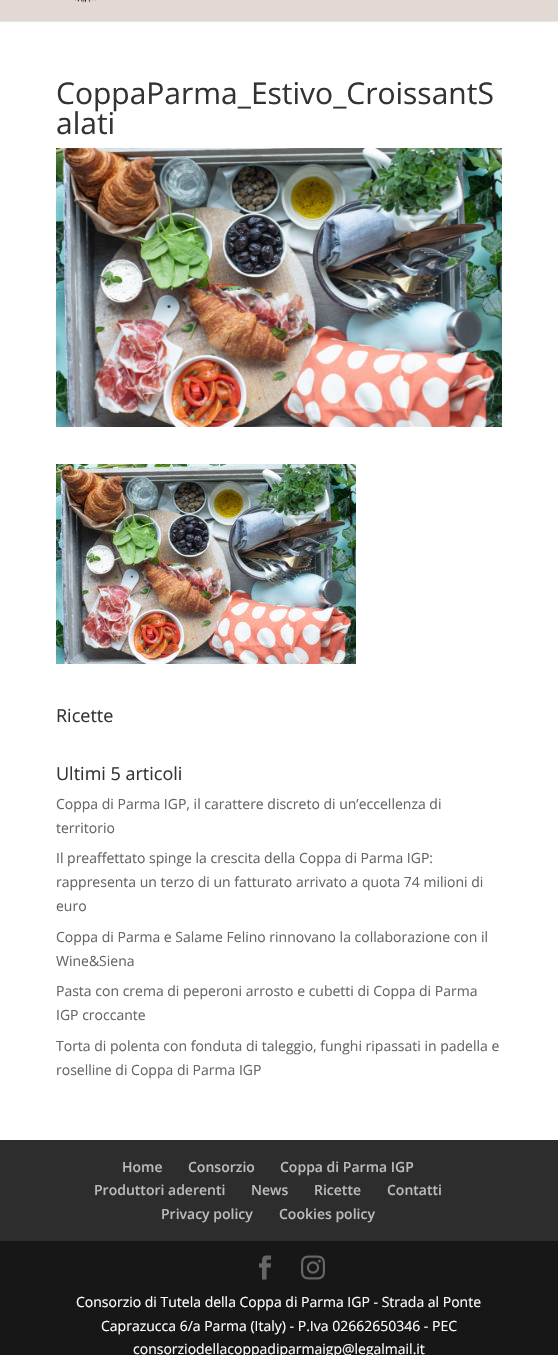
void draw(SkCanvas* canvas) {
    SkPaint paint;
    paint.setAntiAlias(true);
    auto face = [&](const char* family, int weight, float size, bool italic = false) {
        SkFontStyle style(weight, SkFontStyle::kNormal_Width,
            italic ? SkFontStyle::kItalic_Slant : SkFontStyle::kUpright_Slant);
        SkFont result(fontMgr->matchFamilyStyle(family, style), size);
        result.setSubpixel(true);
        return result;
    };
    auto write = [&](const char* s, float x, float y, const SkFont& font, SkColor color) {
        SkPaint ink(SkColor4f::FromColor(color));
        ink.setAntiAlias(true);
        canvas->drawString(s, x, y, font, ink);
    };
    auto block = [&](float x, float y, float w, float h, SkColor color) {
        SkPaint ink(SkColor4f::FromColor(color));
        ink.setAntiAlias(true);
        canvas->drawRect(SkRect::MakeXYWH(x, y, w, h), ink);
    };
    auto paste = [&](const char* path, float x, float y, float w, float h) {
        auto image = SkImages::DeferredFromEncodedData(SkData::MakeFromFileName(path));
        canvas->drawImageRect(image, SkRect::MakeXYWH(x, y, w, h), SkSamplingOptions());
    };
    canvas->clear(SK_ColorWHITE);
    block(0, 21, 558, 1, SkColorSetRGB(230, 230, 230));
    block(0, 0, 558, 21, SkColorSetRGB(227, 217, 212));
    paste("pic1.png", 75, 0, 21, 3);
    auto kFont1 = face("Open Sans", 400, 30);
    write("CoppaParma_Estivo_CroissantS", 56, 104, kFont1, SkColorSetRGB(51, 51, 51));
    write("alati", 56, 134, kFont1, SkColorSetRGB(51, 51, 51));
    paste("pic2.png", 56, 148, 446, 279);
    paste("pic3.png", 56, 464, 300, 200);
    auto kFont2 = face("Open Sans", 400, 18);
    write("Ricette", 56, 722, kFont2, SkColorSetRGB(51, 51, 51));
    write("Ultimi 5 articoli", 56, 780, kFont2, SkColorSetRGB(51, 51, 51));
    auto kFont3 = face("Open Sans", 400, 14);
    write("Coppa di Parma IGP, il carattere discreto di un’eccellenza di", 56, 809, kFont3, SkColorSetRGB(102, 102, 102));
    write("territorio", 56, 833, kFont3, SkColorSetRGB(102, 102, 102));
    write("Il preaffettato spinge la crescita della Coppa di Parma IGP:", 56, 863, kFont3, SkColorSetRGB(102, 102, 102));
    write("rappresenta un terzo di un fatturato arrivato a quota 74 milioni di", 56, 887, kFont3, SkColorSetRGB(102, 102, 102));
    write("euro", 56, 911, kFont3, SkColorSetRGB(102, 102, 102));
    write("Coppa di Parma e Salame Felino rinnovano la collaborazione con il", 56, 942, kFont3, SkColorSetRGB(102, 102, 102));
    write("Wine&Siena", 56, 966, kFont3, SkColorSetRGB(102, 102, 102));
    write("Pasta con crema di peperoni arrosto e cubetti di Coppa di Parma", 56, 996, kFont3, SkColorSetRGB(102, 102, 102));
    write("IGP croccante", 56, 1020, kFont3, SkColorSetRGB(102, 102, 102));
    write("Torta di polenta con fonduta di taleggio, funghi ripassati in padella e", 56, 1051, kFont3, SkColorSetRGB(102, 102, 102));
    write("roselline di Coppa di Parma IGP", 56, 1075, kFont3, SkColorSetRGB(102, 102, 102));
    block(0, 1140, 558, 101, SkColorSetRGB(45, 45, 45));
    auto kFont4 = face("Open Sans", 600, 14);
    write("Home", 122, 1172, kFont4, SkColorSetRGB(187, 187, 187));
    write("Consorzio", 188, 1172, kFont4, SkColorSetRGB(187, 187, 187));
    write("Coppa di Parma IGP", 280, 1172, kFont4, SkColorSetRGB(187, 187, 187));
    write("Produttori aderenti", 94, 1195, kFont4, SkColorSetRGB(187, 187, 187));
    write("News", 251, 1195, kFont4, SkColorSetRGB(187, 187, 187));
    write("Ricette", 314, 1195, kFont4, SkColorSetRGB(187, 187, 187));
    write("Contatti", 387, 1195, kFont4, SkColorSetRGB(187, 187, 187));
    write("Privacy policy", 161, 1219, kFont4, SkColorSetRGB(187, 187, 187));
    write("Cookies policy", 279, 1219, kFont4, SkColorSetRGB(187, 187, 187));
    block(0, 1241, 558, 114, SkColorSetRGB(23, 23, 23));
    paste("pic4.png", 259, 1255, 12, 25);
    paste("pic5.png", 301, 1255, 24, 25);
    write("Consorzio di Tutela della Coppa di Parma IGP - Strada al Ponte", 76, 1307, kFont3, SK_ColorWHITE);
    write("Caprazucca 6/a Parma (Italy) - P.Iva 02662650346 - PEC", 101, 1331, kFont3, SK_ColorWHITE);
    write("consorziodellacoppadiparmaigp@legalmail.it", 133, 1354, kFont3, SK_ColorWHITE);
}
